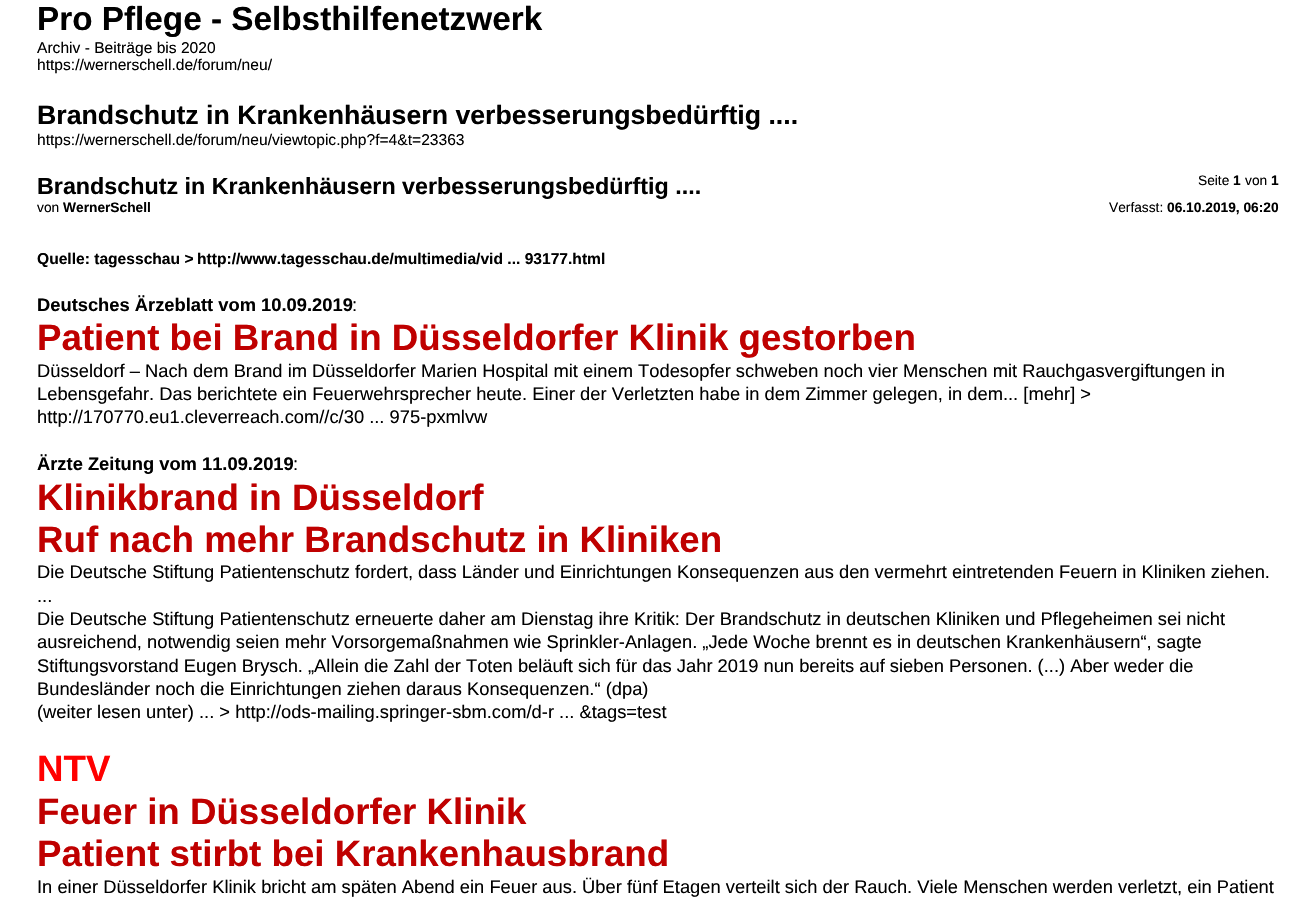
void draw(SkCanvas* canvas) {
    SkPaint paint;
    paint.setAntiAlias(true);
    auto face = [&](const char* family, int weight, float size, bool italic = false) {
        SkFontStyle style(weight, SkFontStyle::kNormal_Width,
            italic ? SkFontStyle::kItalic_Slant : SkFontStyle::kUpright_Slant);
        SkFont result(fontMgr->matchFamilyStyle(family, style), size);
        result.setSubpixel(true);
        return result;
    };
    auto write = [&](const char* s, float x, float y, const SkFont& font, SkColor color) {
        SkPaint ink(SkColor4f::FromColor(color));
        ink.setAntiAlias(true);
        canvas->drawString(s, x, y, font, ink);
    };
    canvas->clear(SK_ColorWHITE);
    auto kFont1 = face("Liberation Sans", 700, 33.3f);
    write("Pro Pflege - Selbsthilfenetzwerk", 37, 30, kFont1, SK_ColorBLACK);
    auto kFont2 = face("Liberation Sans", 400, 15.6f);
    write("Archiv - Beiträge bis 2020", 37, 53, kFont2, SK_ColorBLACK);
    write("https://wernerschell.de/forum/neu/", 37, 70, kFont2, SK_ColorBLACK);
    auto kFont3 = face("Liberation Sans", 700, 26.7f);
    write("Brandschutz in Krankenhäusern verbesserungsbedürftig ....", 37, 124, kFont3, SK_ColorBLACK);
    write("https://wernerschell.de/forum/neu/viewtopic.php?f=4&t=23363", 37, 145, kFont2, SK_ColorBLACK);
    auto kFont4 = face("Liberation Sans", 400, 13.75f);
    write("Seite", 1198, 185, kFont4, SK_ColorBLACK);
    auto kFont5 = face("Liberation Sans", 700, 13.75f);
    write("1", 1233, 185, kFont5, SK_ColorBLACK);
    write("von", 1245, 185, kFont4, SK_ColorBLACK);
    write("1", 1271, 185, kFont5, SK_ColorBLACK);
    auto kFont6 = face("Liberation Sans", 700, 23.3f);
    write("Brandschutz in Krankenhäusern verbesserungsbedürftig ....", 37, 194, kFont6, SK_ColorBLACK);
    write("von", 37, 212, kFont4, SK_ColorBLACK);
    write("WernerSchell", 63, 212, kFont5, SK_ColorBLACK);
    write("Verfasst:", 1109, 212, kFont4, SK_ColorBLACK);
    write("06.10.2019, 06:20", 1167, 212, kFont5, SK_ColorBLACK);
    auto kFont7 = face("Liberation Sans", 700, 15.6f);
    write("Quelle: tagesschau >", 37, 264, kFont7, SK_ColorBLACK);
    write("http://www.tagesschau.de/multimedia/vid ... 93177.html", 197, 264, kFont7, SK_ColorBLACK);
    auto kFont8 = face("Liberation Sans", 700, 18.33f);
    write("Deutsches Ärzeblatt vom 10.09.2019", 37, 311, kFont8, SK_ColorBLACK);
    auto kFont9 = face("Liberation Sans", 400, 18.33f);
    write(":", 352, 311, kFont9, SK_ColorBLACK);
    auto kFont10 = face("Liberation Sans", 700, 36.7f);
    write("Patient bei Brand in Düsseldorfer Klinik gestorben", 37, 350, kFont10, SkColorSetRGB(191, 0, 0));
    write("Düsseldorf – Nach dem Brand im Düsseldorfer Marien Hospital mit einem Todesopfer schweben noch vier Menschen mit Rauchgasvergiftungen in", 37, 377, kFont9, SK_ColorBLACK);
    write("Lebensgefahr. Das berichtete ein Feuerwehrsprecher heute. Einer der Verletzten habe in dem Zimmer gelegen, in dem... [mehr] >", 37, 400, kFont9, SK_ColorBLACK);
    write("http://170770.eu1.cleverreach.com//c/30 ... 975-pxmlvw", 37, 423, kFont9, SK_ColorBLACK);
    write("Ärzte Zeitung vom 11.09.2019", 37, 470, kFont8, SK_ColorBLACK);
    write(":", 293, 470, kFont9, SK_ColorBLACK);
    write("Klinikbrand in Düsseldorf", 37, 510, kFont10, SkColorSetRGB(191, 0, 0));
    write("Ruf nach mehr Brandschutz in Kliniken", 37, 552, kFont10, SkColorSetRGB(191, 0, 0));
    write("Die Deutsche Stiftung Patientenschutz fordert, dass Länder und Einrichtungen Konsequenzen aus den vermehrt eintretenden Feuern in Kliniken ziehen.", 37, 578, kFont9, SK_ColorBLACK);
    write("...", 37, 602, kFont9, SK_ColorBLACK);
    write("Die Deutsche Stiftung Patientenschutz erneuerte daher am Dienstag ihre Kritik: Der Brandschutz in deutschen Kliniken und Pflegeheimen sei nicht", 37, 625, kFont9, SK_ColorBLACK);
    write("ausreichend, notwendig seien mehr Vorsorgemaßnahmen wie Sprinkler-Anlagen. „Jede Woche brennt es in deutschen Krankenhäusern“, sagte", 37, 648, kFont9, SK_ColorBLACK);
    write("Stiftungsvorstand Eugen Brysch. „Allein die Zahl der Toten beläuft sich für das Jahr 2019 nun bereits auf sieben Personen. (...) Aber weder die", 37, 672, kFont9, SK_ColorBLACK);
    write("Bundesländer noch die Einrichtungen ziehen daraus Konsequenzen.“ (dpa)", 37, 695, kFont9, SK_ColorBLACK);
    write("(weiter lesen unter) ... > http://ods-mailing.springer-sbm.com/d-r ... &tags=test", 37, 718, kFont9, SK_ColorBLACK);
    write("NTV", 37, 781, kFont10, SkColorSetRGB(255, 0, 0));
    write("Feuer in Düsseldorfer Klinik", 37, 824, kFont10, SkColorSetRGB(191, 0, 0));
    write("Patient stirbt bei Krankenhausbrand", 37, 866, kFont10, SkColorSetRGB(191, 0, 0));
    write("In einer Düsseldorfer Klinik bricht am späten Abend ein Feuer aus. Über fünf Etagen verteilt sich der Rauch. Viele Menschen werden verletzt, ein Patient", 37, 893, kFont9, SK_ColorBLACK);
}
